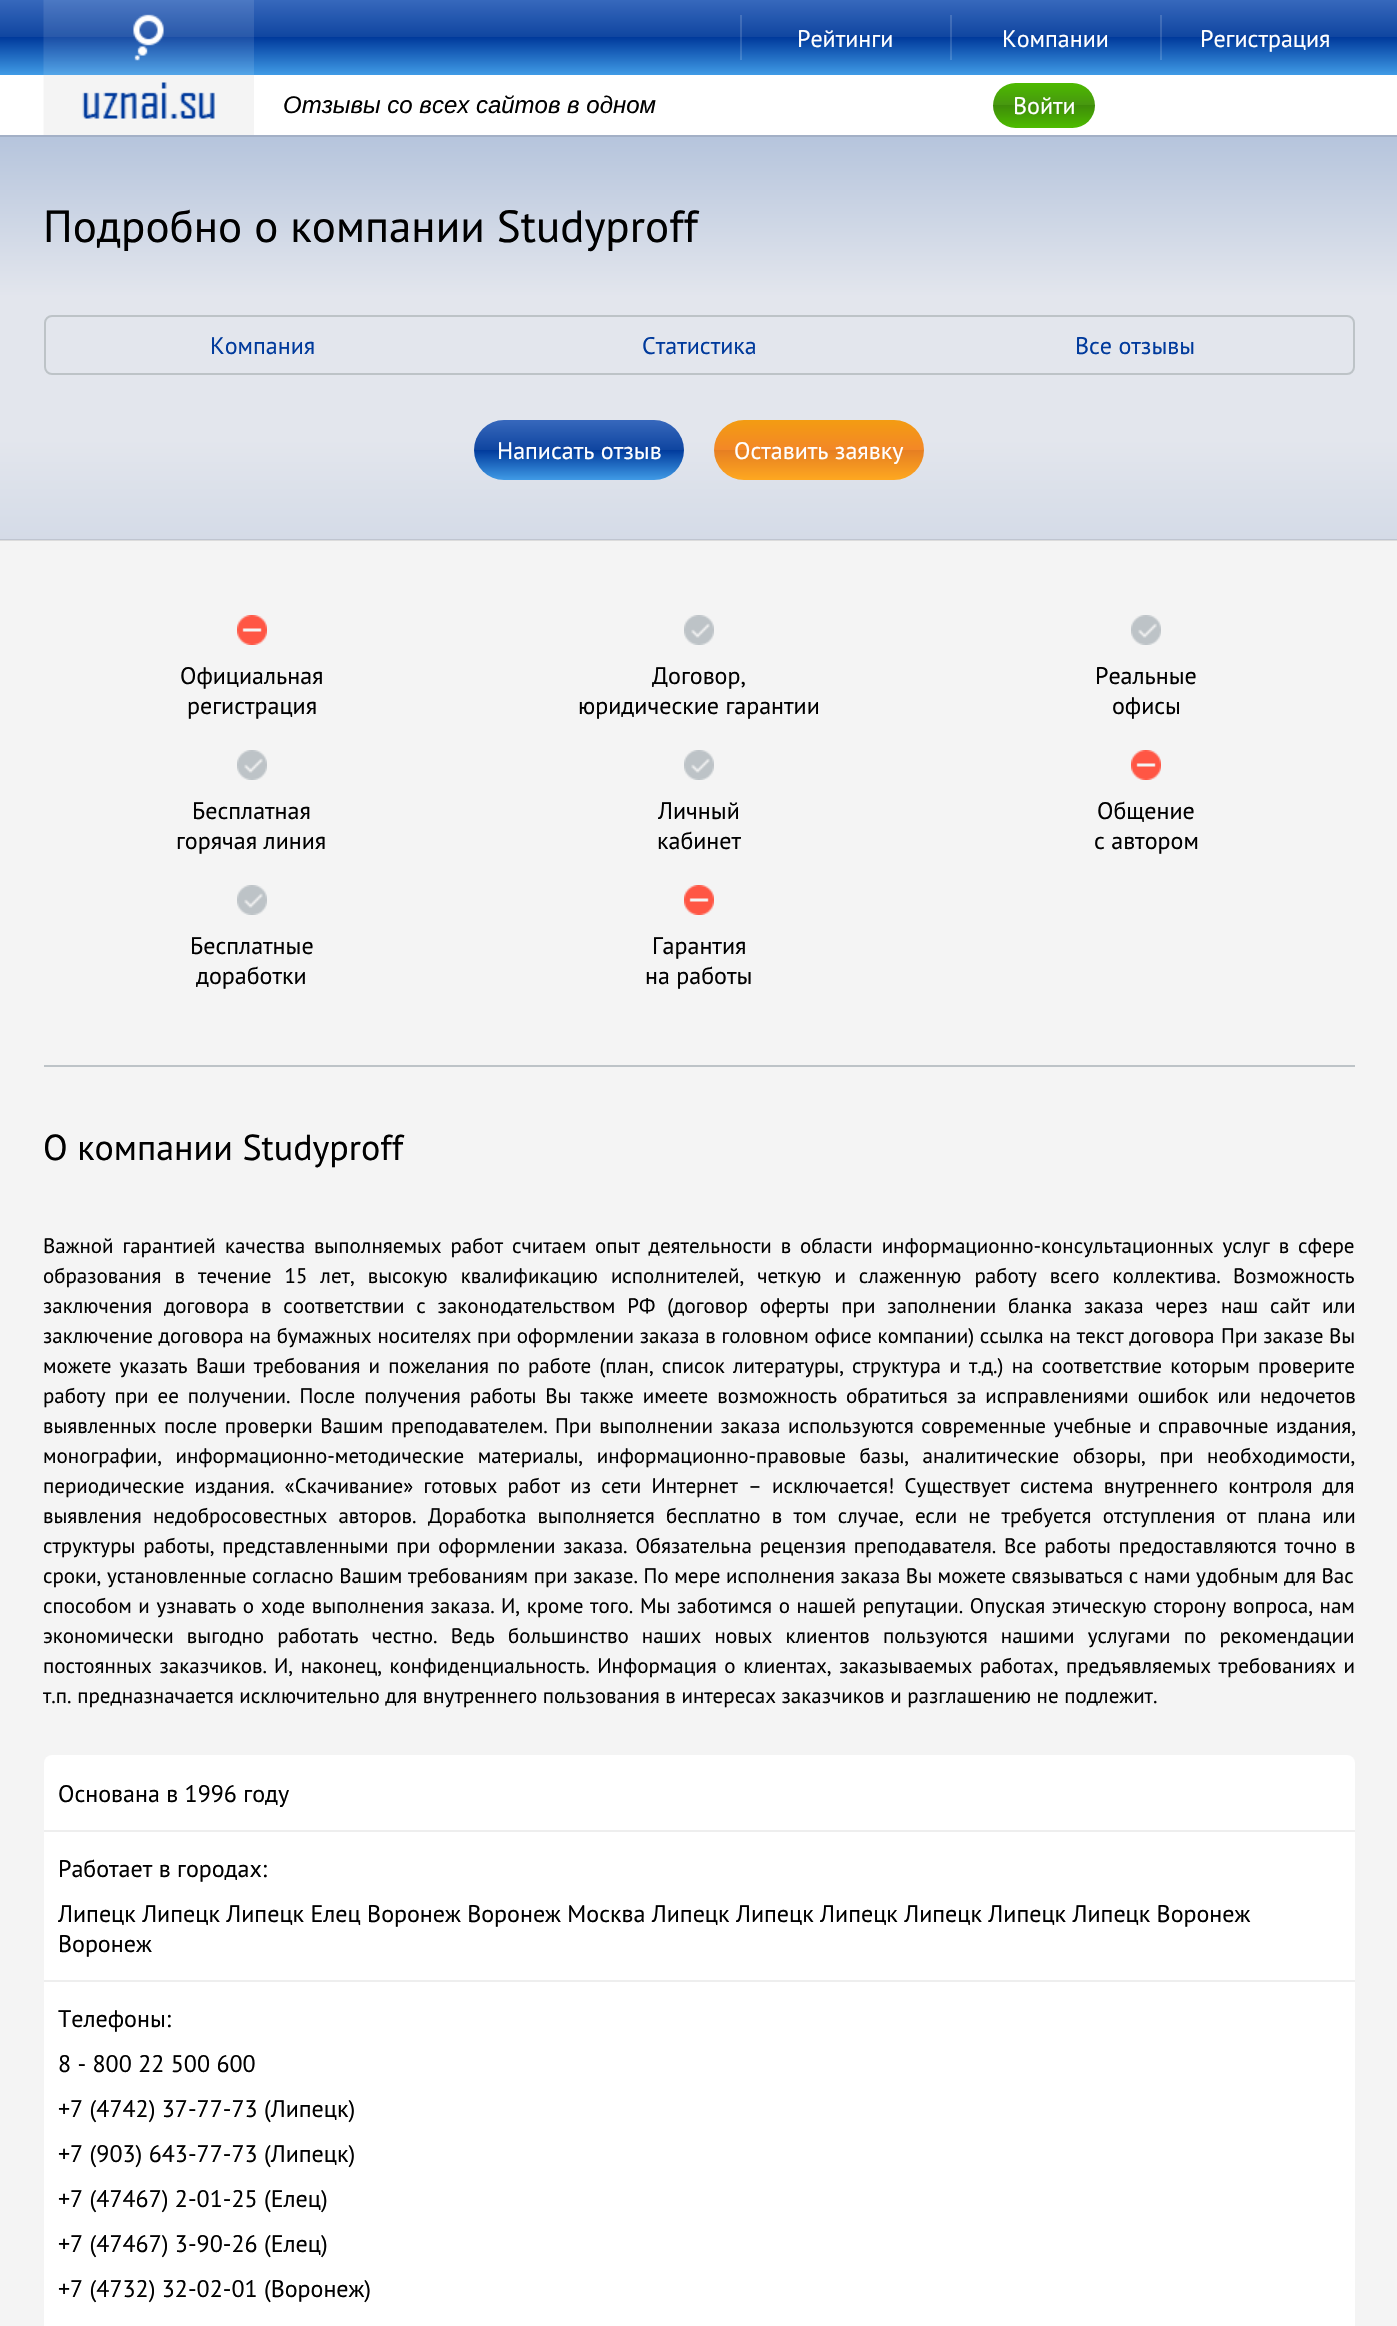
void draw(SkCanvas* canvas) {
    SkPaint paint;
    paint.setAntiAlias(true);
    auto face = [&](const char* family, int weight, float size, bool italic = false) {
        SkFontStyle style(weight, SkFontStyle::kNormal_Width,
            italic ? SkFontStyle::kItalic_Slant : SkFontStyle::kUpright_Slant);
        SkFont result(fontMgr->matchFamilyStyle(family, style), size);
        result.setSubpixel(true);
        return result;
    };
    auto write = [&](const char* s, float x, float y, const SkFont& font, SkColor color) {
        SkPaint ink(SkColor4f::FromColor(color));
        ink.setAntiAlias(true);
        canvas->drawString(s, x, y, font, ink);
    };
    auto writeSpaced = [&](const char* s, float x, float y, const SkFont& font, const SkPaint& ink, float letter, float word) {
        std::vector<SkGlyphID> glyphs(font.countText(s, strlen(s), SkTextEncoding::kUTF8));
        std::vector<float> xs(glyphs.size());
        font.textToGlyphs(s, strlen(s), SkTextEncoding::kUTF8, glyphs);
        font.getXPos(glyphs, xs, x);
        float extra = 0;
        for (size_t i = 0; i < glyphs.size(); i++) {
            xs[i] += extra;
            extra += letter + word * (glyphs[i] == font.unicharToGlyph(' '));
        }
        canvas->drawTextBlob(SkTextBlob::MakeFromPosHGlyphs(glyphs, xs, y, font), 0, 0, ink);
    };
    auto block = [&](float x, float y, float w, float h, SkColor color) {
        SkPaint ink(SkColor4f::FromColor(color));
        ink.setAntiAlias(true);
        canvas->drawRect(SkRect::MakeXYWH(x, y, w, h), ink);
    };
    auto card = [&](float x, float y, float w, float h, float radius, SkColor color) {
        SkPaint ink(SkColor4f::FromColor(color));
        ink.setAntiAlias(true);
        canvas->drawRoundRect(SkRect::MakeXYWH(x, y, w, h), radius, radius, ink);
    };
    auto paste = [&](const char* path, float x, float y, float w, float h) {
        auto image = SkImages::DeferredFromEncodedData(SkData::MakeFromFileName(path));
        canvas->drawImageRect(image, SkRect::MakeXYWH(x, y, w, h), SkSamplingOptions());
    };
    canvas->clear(SkColorSetRGB(244, 244, 244));
    block(0, 540, 1397, 1, SkColorSetRGB(220, 220, 220));
    block(0, 135, 1397, 2, SkColorSetRGB(163, 176, 198));
    block(0, 75, 1397, 60, SK_ColorWHITE);
    {
        const SkColor colors[] = {SkColorSetRGB(55, 104, 188), SkColorSetRGB(15, 69, 160), SkColorSetRGB(0, 58, 156), SkColorSetRGB(64, 155, 230)};
        const float stops[] = {0, 0.5f, 0.5f, 1};
        const SkPoint ends[] = {{699, 0}, {699, 75}};
        paint.setShader(SkGradientShader::MakeLinear(ends, colors, stops, 4, SkTileMode::kClamp));
        paint.setAlpha(255);
    }
    canvas->drawRect(SkRect::MakeXYWH(0, 0, 1397, 75), paint);
    {
        const SkColor colors[] = {SkColorSetRGB(85, 127, 198), SkColorSetRGB(51, 97, 174), SkColorSetRGB(38, 88, 171), SkColorSetRGB(93, 170, 234)};
        const float stops[] = {0, 0.5f, 0.5f, 1};
        const SkPoint ends[] = {{699, 0}, {699, 75}};
        paint.setShader(SkGradientShader::MakeLinear(ends, colors, stops, 4, SkTileMode::kClamp));
        paint.setAlpha(255);
    }
    canvas->drawRect(SkRect::MakeXYWH(1160, 15, 2, 45), paint);
    canvas->drawRect(SkRect::MakeXYWH(950, 15, 2, 45), paint);
    canvas->drawRect(SkRect::MakeXYWH(740, 15, 2, 45), paint);
    paste("pic1.png", 43, 0, 211, 75);
    auto kFont1 = face("PT Sans", 400, 24);
    write("Рейтинги", 797, 47, kFont1, SK_ColorWHITE);
    write("Компании", 1002, 47, kFont1, SK_ColorWHITE);
    write("Регистрация", 1200, 47, kFont1, SK_ColorWHITE);
    paste("pic2.png", 43, 75, 211, 60);
    auto kFont2 = face("Liberation Sans", 400, 24, true);
    write("Отзывы со всех сайтов в одном", 283, 113, kFont2, SK_ColorBLACK);
    {
        const SkColor colors[] = {SkColorSetRGB(77, 186, 0), SkColorSetRGB(71, 150, 16), SkColorSetRGB(62, 140, 9), SkColorSetRGB(77, 188, 0)};
        const float stops[] = {0, 0.5f, 0.5f, 1};
        const SkPoint ends[] = {{1044, 83}, {1044, 128}};
        paint.setShader(SkGradientShader::MakeLinear(ends, colors, stops, 4, SkTileMode::kClamp));
        paint.setAlpha(255);
    }
    canvas->drawRoundRect(SkRect::MakeXYWH(993, 83, 102, 45), 22.5f, 22.5f, paint);
    write("Войти", 1013, 114, kFont1, SK_ColorWHITE);
    {
        const SkColor colors[] = {SkColorSetRGB(212, 219, 231), SkColorSetRGB(227, 230, 237), SkColorSetRGB(227, 230, 237), SkColorSetRGB(181, 196, 220)};
        const float stops[] = {0, 0.25f, 0.6f, 1};
        const SkPoint ends[] = {{699, 540}, {699, 135}};
        paint.setShader(SkGradientShader::MakeLinear(ends, colors, stops, 4, SkTileMode::kClamp));
        paint.setAlpha(255);
    }
    canvas->drawRect(SkRect::MakeXYWH(0, 137, 1397, 402), paint);
    {
        const SkColor colors[] = {SkColorSetRGB(191, 197, 208), SkColorSetRGB(204, 207, 213), SkColorSetRGB(204, 207, 213), SkColorSetRGB(163, 176, 198)};
        const float stops[] = {0, 0.25f, 0.6f, 1};
        const SkPoint ends[] = {{699, 540}, {699, 135}};
        paint.setShader(SkGradientShader::MakeLinear(ends, colors, stops, 4, SkTileMode::kClamp));
        paint.setAlpha(255);
    }
    canvas->drawRect(SkRect::MakeXYWH(0, 539, 1397, 1), paint);
    auto kFont3 = face("PT Sans", 400, 45);
    write("Подробно о компании Studyproff", 43, 242, kFont3, SK_ColorBLACK);
    paint.setStyle(SkPaint::kStroke_Style);
    paint.setStrokeWidth(2);
    paint.setShader(nullptr);
    paint.setColor(SkColorSetRGB(189, 195, 199));
    canvas->drawRoundRect(SkRect::MakeXYWH(45, 316, 1309, 58), 7, 7, paint);
    write("Компания", 210, 354, kFont1, SkColorSetRGB(0, 58, 156));
    write("Статистика", 642, 354, kFont1, SkColorSetRGB(0, 58, 156));
    write("Все отзывы", 1075, 354, kFont1, SkColorSetRGB(0, 58, 156));
    paint.setStyle(SkPaint::kFill_Style);
    {
        const SkColor colors[] = {SkColorSetRGB(55, 104, 188), SkColorSetRGB(15, 69, 160), SkColorSetRGB(0, 58, 156), SkColorSetRGB(64, 155, 230)};
        const float stops[] = {0, 0.5f, 0.5f, 1};
        const SkPoint ends[] = {{579, 420}, {579, 480}};
        paint.setShader(SkGradientShader::MakeLinear(ends, colors, stops, 4, SkTileMode::kClamp));
        paint.setAlpha(255);
    }
    canvas->drawRoundRect(SkRect::MakeXYWH(474, 420, 210, 60), 30, 30, paint);
    write("Написать отзыв", 497, 459, kFont1, SK_ColorWHITE);
    {
        const SkColor colors[] = {SkColorSetRGB(243, 156, 18), SkColorSetRGB(243, 135, 39), SkColorSetRGB(230, 126, 34), SkColorSetRGB(254, 168, 32)};
        const float stops[] = {0, 0.5f, 0.5f, 1};
        const SkPoint ends[] = {{819, 420}, {819, 480}};
        paint.setShader(SkGradientShader::MakeLinear(ends, colors, stops, 4, SkTileMode::kClamp));
        paint.setAlpha(255);
    }
    canvas->drawRoundRect(SkRect::MakeXYWH(714, 420, 210, 60), 30, 30, paint);
    write("Оставить заявку", 734, 459, kFont1, SK_ColorWHITE);
    paste("pic3.png", 237, 615, 30, 30);
    write("Официальная", 180, 684, kFont1, SK_ColorBLACK);
    write("регистрация", 187, 714, kFont1, SK_ColorBLACK);
    paste("pic4.png", 684, 615, 30, 30);
    write("Договор,", 652, 684, kFont1, SK_ColorBLACK);
    write("юридические гарантии", 578, 714, kFont1, SK_ColorBLACK);
    paste("pic5.png", 1131, 615, 30, 30);
    write("Реальные", 1095, 684, kFont1, SK_ColorBLACK);
    write("офисы", 1112, 714, kFont1, SK_ColorBLACK);
    paste("pic4.png", 237, 750, 30, 30);
    write("Бесплатная", 192, 819, kFont1, SK_ColorBLACK);
    write("горячая линия", 176, 849, kFont1, SK_ColorBLACK);
    paste("pic4.png", 684, 750, 30, 30);
    write("Личный", 658, 819, kFont1, SK_ColorBLACK);
    write("кабинет", 657, 849, kFont1, SK_ColorBLACK);
    paste("pic6.png", 1131, 750, 30, 30);
    write("Общение", 1097, 819, kFont1, SK_ColorBLACK);
    write("с автором", 1094, 849, kFont1, SK_ColorBLACK);
    paste("pic4.png", 237, 885, 30, 30);
    write("Бесплатные", 190, 954, kFont1, SK_ColorBLACK);
    write("доработки", 196, 984, kFont1, SK_ColorBLACK);
    paste("pic3.png", 684, 885, 30, 30);
    write("Гарантия", 652, 954, kFont1, SK_ColorBLACK);
    write("на работы", 645, 984, kFont1, SK_ColorBLACK);
    block(44, 1065, 1311, 2, SkColorSetRGB(189, 195, 199));
    auto kFont4 = face("PT Sans", 400, 36);
    write("О компании Studyproff", 43, 1160, kFont4, SK_ColorBLACK);
    auto kFont5 = face("PT Sans", 400, 21);
    paint.setShader(nullptr);
    paint.setColor(SK_ColorBLACK);
    writeSpaced("Важной гарантией", 43, 1253, kFont5, paint, 0, 3.25f);
    write("качества", 225, 1253, kFont5, SK_ColorBLACK);
    writeSpaced("выполняемых работ считаем опыт деятельности в области информационно-консультационных услуг в сфере", 314, 1253, kFont5, paint, 0, 3.25f);
    writeSpaced("образования в течение 15 лет, высокую квалификацию исполнителей, четкую и слаженную работу всего коллектива.", 43, 1283, kFont5, paint, 0, 7.4f);
    write("Возможность", 1233, 1283, kFont5, SK_ColorBLACK);
    writeSpaced("заключения договора в соответствии с законодательством РФ (договор оферты при заполнении бланка заказа через", 43, 1313, kFont5, paint, 0, 6.25f);
    writeSpaced("наш сайт", 1221, 1313, kFont5, paint, 0, 6.25f);
    write("или", 1322, 1313, kFont5, SK_ColorBLACK);
    writeSpaced("заключение договора на бумажных носителях при оформлении заказа в головном офисе компании) ссылка на текст договора", 43, 1343, kFont5, paint, 0, 0.1f);
    write("При заказе Вы", 1221, 1343, kFont5, SK_ColorBLACK);
    writeSpaced("можете указать", 43, 1373, kFont5, paint, 0, 2.6f);
    writeSpaced("Ваши требования и пожелания по работе (план, список литературы, структура и т.д.) на соответствие которым", 196, 1373, kFont5, paint, 0, 2.6f);
    write("проверите", 1258, 1373, kFont5, SK_ColorBLACK);
    writeSpaced("работу при ее получении. После получения работы Вы также имеете возможность обратиться за исправлениями ошибок или недочетов", 43, 1403, kFont5, paint, 0, 3.4f);
    writeSpaced("выявленных после проверки Вашим преподавателем.", 43, 1433, kFont5, paint, 0, 2);
    writeSpaced("При выполнении заказа используются современные учебные и справочные издания,", 555, 1433, kFont5, paint, 0, 2);
    writeSpaced("монографии, информационно-методические материалы, информационно-правовые базы, аналитические обзоры, при необходимости,", 43, 1463, kFont5, paint, 0, 8);
    writeSpaced("периодические издания. «Скачивание» готовых работ из сети Интернет – исключается! Существует система внутреннего контроля для", 43, 1493, kFont5, paint, 0, 4.6f);
    writeSpaced("выявления недобросовестных авторов.", 43, 1523, kFont5, paint, 0, 5.6f);
    writeSpaced("Доработка выполняется бесплатно в том случае, если не требуется отступления от плана или", 428, 1523, kFont5, paint, 0, 5.6f);
    writeSpaced("структуры работы, представленными при оформлении заказа. Обязательна рецензия преподавателя.", 43, 1553, kFont5, paint, 0, 2.25f);
    writeSpaced("Все работы предоставляются точно в", 1004, 1553, kFont5, paint, 0, 2.25f);
    write("сроки, установленные согласно Вашим требованиям при заказе. По мере исполнения заказа Вы можете связываться с нами удобным для Вас", 43, 1583, kFont5, SK_ColorBLACK);
    writeSpaced("способом и узнавать о", 43, 1613, kFont5, paint, 0, 1);
    writeSpaced("ходе выполнения заказа.", 261, 1613, kFont5, paint, 0, 1);
    writeSpaced("И, кроме того.", 501, 1613, kFont5, paint, 0, 1);
    writeSpaced("Мы заботимся о нашей репутации. Опуская этическую сторону вопроса, нам", 640, 1613, kFont5, paint, 0, 1);
    writeSpaced("экономически выгодно работать честно. Ведь большинство наших новых клиентов пользуются нашими услугами по рекомендации", 43, 1643, kFont5, paint, 0, 7.6f);
    writeSpaced("постоянных заказчиков.", 43, 1673, kFont5, paint, 0, 2);
    writeSpaced("И, наконец, конфиденциальность. Информация о клиентах, заказываемых работах, предъявляемых требованиях и", 274, 1673, kFont5, paint, 0, 2);
    write("т.п. предназначается исключительно для внутреннего пользования в интересах заказчиков и разглашению не подлежит.", 43, 1703, kFont5, SK_ColorBLACK);
    card(44, 1755, 1311, 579, 8, SK_ColorWHITE);
    write("Основана в 1996 году", 58, 1802, kFont1, SK_ColorBLACK);
    block(44, 1830, 1311, 2, SkColorSetRGB(238, 238, 238));
    write("Работает в городах:", 58, 1877, kFont1, SK_ColorBLACK);
    write("Липецк Липецк Липецк Елец Воронеж Воронеж Москва Липецк Липецк Липецк Липецк Липецк Липецк Воронеж", 58, 1922, kFont1, SK_ColorBLACK);
    write("Воронеж", 58, 1952, kFont1, SK_ColorBLACK);
    block(44, 1980, 1311, 2, SkColorSetRGB(238, 238, 238));
    write("Телефоны:", 58, 2027, kFont1, SK_ColorBLACK);
    write("8 - 800 22 500 600", 58, 2072, kFont1, SK_ColorBLACK);
    write("+7 (4742) 37-77-73 (Липецк)", 58, 2117, kFont1, SK_ColorBLACK);
    write("+7 (903) 643-77-73 (Липецк)", 58, 2162, kFont1, SK_ColorBLACK);
    write("+7 (47467) 2-01-25 (Елец)", 58, 2207, kFont1, SK_ColorBLACK);
    write("+7 (47467) 3-90-26 (Елец)", 58, 2252, kFont1, SK_ColorBLACK);
    write("+7 (4732) 32-02-01 (Воронеж)", 58, 2297, kFont1, SK_ColorBLACK);
}
